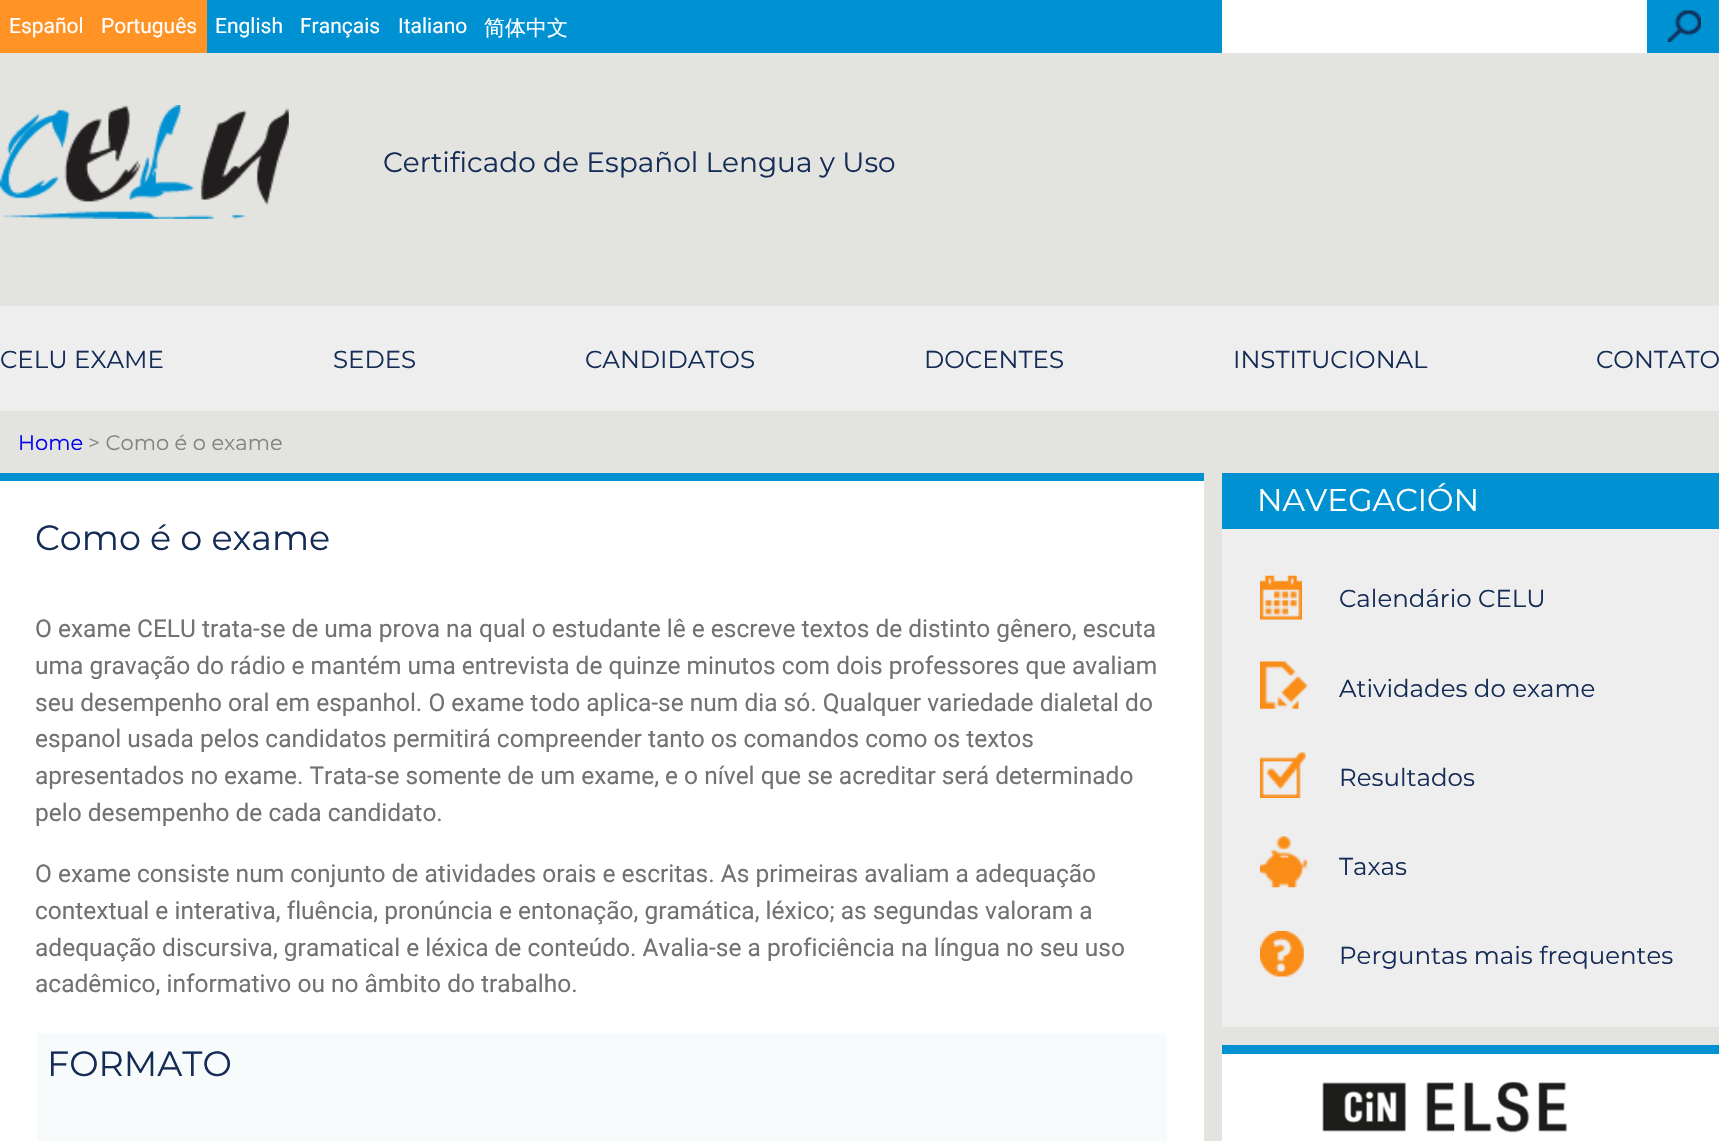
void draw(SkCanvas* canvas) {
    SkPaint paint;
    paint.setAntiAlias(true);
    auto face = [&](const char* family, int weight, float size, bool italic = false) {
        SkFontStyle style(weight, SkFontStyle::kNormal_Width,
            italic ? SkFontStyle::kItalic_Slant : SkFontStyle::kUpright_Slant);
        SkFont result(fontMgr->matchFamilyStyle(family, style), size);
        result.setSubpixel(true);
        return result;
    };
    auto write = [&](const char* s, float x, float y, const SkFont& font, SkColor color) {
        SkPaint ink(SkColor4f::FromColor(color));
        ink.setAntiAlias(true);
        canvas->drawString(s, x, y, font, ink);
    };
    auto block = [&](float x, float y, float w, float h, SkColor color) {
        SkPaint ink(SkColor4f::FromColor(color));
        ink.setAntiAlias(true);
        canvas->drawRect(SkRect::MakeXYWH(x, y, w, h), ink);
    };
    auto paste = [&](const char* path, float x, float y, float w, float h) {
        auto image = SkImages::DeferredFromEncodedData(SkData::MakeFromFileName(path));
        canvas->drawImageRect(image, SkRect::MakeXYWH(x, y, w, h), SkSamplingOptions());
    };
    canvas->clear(SkColorSetRGB(227, 228, 224));
    block(207, 0, 1512, 53, SkColorSetRGB(0, 145, 210));
    block(0, 0, 207, 53, SkColorSetRGB(255, 147, 38));
    auto kFont1 = face("Roboto", 400, 21);
    write("Español", 9, 33, kFont1, SK_ColorWHITE);
    write("Português", 101, 33, kFont1, SK_ColorWHITE);
    write("English", 215, 33, kFont1, SK_ColorWHITE);
    write("Français", 300, 33, kFont1, SK_ColorWHITE);
    write("Italiano", 398, 33, kFont1, SK_ColorWHITE);
    auto kFont2 = face("WenQuanYi Zen Hei", 500, 21);
    write("简体中文", 484, 35, kFont2, SK_ColorWHITE);
    block(1222, 0, 425, 53, SK_ColorWHITE);
    paste("pic1.png", 1667, 10, 34, 32);
    paste("pic2.png", 0, 105, 289, 114);
    auto kFont3 = face("Montserrat", 400, 28);
    write("Certificado de Español Lengua y Uso", 383, 172, kFont3, SkColorSetRGB(20, 44, 86));
    block(0, 306, 1719, 105, SkColorSetRGB(238, 238, 238));
    auto kFont4 = face("Montserrat", 400, 24.5f);
    write("CELU EXAME", 0, 368, kFont4, SkColorSetRGB(20, 44, 86));
    write("SEDES", 333, 368, kFont4, SkColorSetRGB(20, 44, 86));
    write("CANDIDATOS", 585, 368, kFont4, SkColorSetRGB(20, 44, 86));
    write("DOCENTES", 924, 368, kFont4, SkColorSetRGB(20, 44, 86));
    write("INSTITUCIONAL", 1233, 368, kFont4, SkColorSetRGB(20, 44, 86));
    write("CONTATO", 1596, 368, kFont4, SkColorSetRGB(20, 44, 86));
    auto kFont5 = face("Montserrat", 400, 21);
    write("Home", 18, 450, kFont5, SkColorSetRGB(0, 0, 238));
    write("> Como é o exame", 88, 450, kFont5, SkColorSetRGB(132, 132, 132));
    block(0, 481, 1204, 660, SK_ColorWHITE);
    block(0, 473, 1204, 8, SkColorSetRGB(0, 145, 210));
    auto kFont6 = face("Montserrat", 400, 35);
    write("Como é o exame", 35, 550, kFont6, SkColorSetRGB(20, 44, 86));
    auto kFont7 = face("Roboto", 400, 24.5f);
    write("O exame CELU trata-se de uma prova na qual o estudante lê e escreve textos de distinto gênero, escuta", 35, 637, kFont7, SkColorSetRGB(114, 114, 114));
    write("uma gravação do rádio e mantém uma entrevista de quinze minutos com dois professores que avaliam", 35, 674, kFont7, SkColorSetRGB(114, 114, 114));
    write("seu desempenho oral em espanhol. O exame todo aplica-se num dia só. Qualquer variedade dialetal do", 35, 711, kFont7, SkColorSetRGB(114, 114, 114));
    write("espanol usada pelos candidatos permitirá compreender tanto os comandos como os textos", 35, 747, kFont7, SkColorSetRGB(114, 114, 114));
    write("apresentados no exame. Trata-se somente de um exame, e o nível que se acreditar será determinado", 35, 784, kFont7, SkColorSetRGB(114, 114, 114));
    write("pelo desempenho de cada candidato.", 35, 821, kFont7, SkColorSetRGB(114, 114, 114));
    write("O exame consiste num conjunto de atividades orais e escritas. As primeiras avaliam a adequação", 35, 882, kFont7, SkColorSetRGB(114, 114, 114));
    write("contextual e interativa, fluência, pronúncia e entonação, gramática, léxico; as segundas valoram a", 35, 919, kFont7, SkColorSetRGB(114, 114, 114));
    write("adequação discursiva, gramatical e léxica de conteúdo. Avalia-se a proficiência na língua no seu uso", 35, 956, kFont7, SkColorSetRGB(114, 114, 114));
    write("acadêmico, informativo ou no âmbito do trabalho.", 35, 992, kFont7, SkColorSetRGB(114, 114, 114));
    block(37, 1033, 1130, 108, SkColorSetRGB(248, 251, 252));
    write("FORMATO", 47, 1076, kFont6, SkColorSetRGB(20, 44, 86));
    block(1222, 529, 497, 498, SkColorSetRGB(238, 238, 238));
    block(1222, 473, 497, 56, SkColorSetRGB(0, 145, 210));
    auto kFont8 = face("Montserrat", 400, 31.5f);
    write("NAVEGACIÓN", 1257, 511, kFont8, SK_ColorWHITE);
    paste("pic3.png", 1260, 575, 42, 45);
    write("Calendário CELU", 1339, 607, kFont4, SkColorSetRGB(20, 44, 86));
    paste("pic4.png", 1260, 661, 48, 48);
    write("Atividades do exame", 1339, 697, kFont4, SkColorSetRGB(20, 44, 86));
    paste("pic5.png", 1260, 752, 46, 46);
    write("Resultados", 1339, 786, kFont4, SkColorSetRGB(20, 44, 86));
    paste("pic6.png", 1260, 836, 48, 52);
    write("Taxas", 1339, 875, kFont4, SkColorSetRGB(20, 44, 86));
    paste("pic7.png", 1260, 931, 44, 46);
    write("Perguntas mais frequentes", 1339, 964, kFont4, SkColorSetRGB(20, 44, 86));
    block(1222, 1054, 497, 87, SK_ColorWHITE);
    block(1222, 1045, 497, 9, SkColorSetRGB(0, 145, 210));
    paste("pic8.png", 1322, 1081, 246, 52);
}
